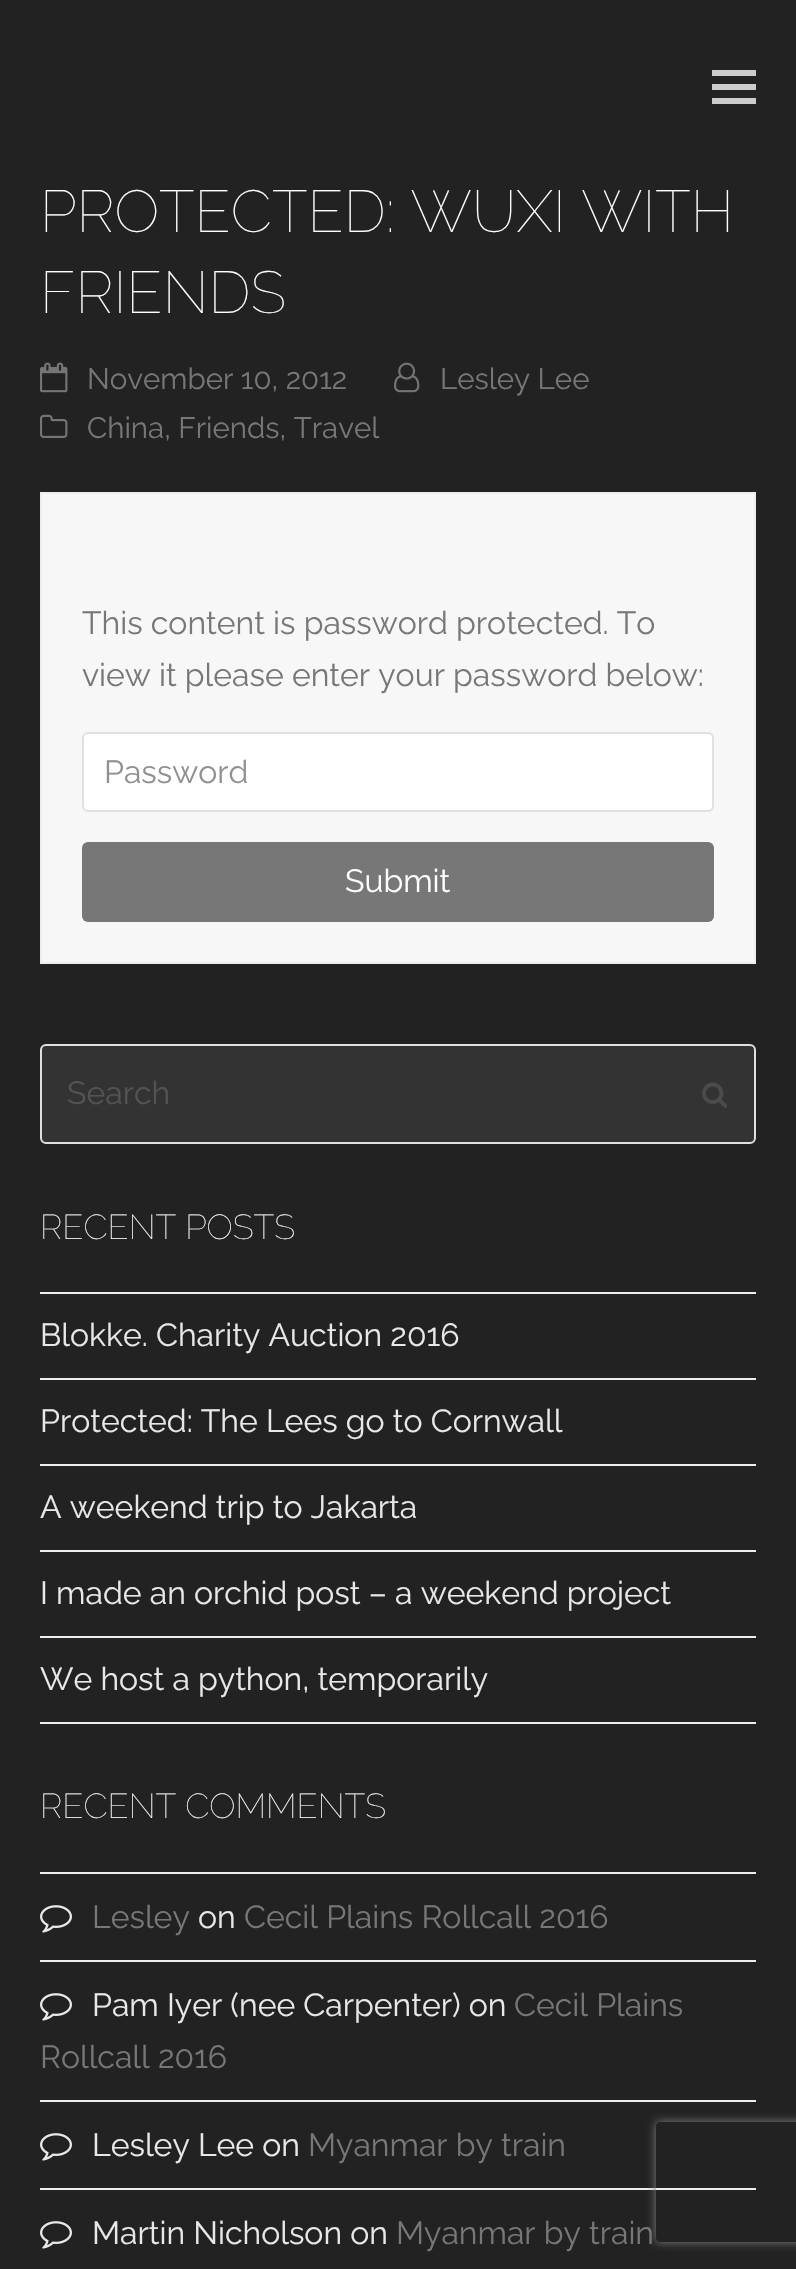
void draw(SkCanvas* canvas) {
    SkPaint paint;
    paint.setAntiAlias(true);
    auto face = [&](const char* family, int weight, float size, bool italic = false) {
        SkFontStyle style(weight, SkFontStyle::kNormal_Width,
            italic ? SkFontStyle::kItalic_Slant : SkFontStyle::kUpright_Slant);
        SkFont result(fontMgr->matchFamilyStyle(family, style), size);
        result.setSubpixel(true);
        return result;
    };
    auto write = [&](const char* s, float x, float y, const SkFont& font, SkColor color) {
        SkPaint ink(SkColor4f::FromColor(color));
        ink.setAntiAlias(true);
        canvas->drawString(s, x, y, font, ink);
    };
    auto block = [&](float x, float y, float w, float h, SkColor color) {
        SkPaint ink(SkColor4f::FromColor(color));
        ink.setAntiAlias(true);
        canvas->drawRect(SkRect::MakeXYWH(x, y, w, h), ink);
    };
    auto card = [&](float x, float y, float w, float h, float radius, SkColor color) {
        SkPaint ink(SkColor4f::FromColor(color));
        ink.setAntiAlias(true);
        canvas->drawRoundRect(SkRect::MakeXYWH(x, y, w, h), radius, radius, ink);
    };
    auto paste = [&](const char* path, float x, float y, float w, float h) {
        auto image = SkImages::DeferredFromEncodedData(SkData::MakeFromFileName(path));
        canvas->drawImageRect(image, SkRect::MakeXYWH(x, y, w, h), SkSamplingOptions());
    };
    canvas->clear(SkColorSetRGB(34, 34, 34));
    block(712, 84, 44, 6, SkColorSetRGB(204, 204, 204));
    block(712, 70, 44, 6, SkColorSetRGB(204, 204, 204));
    block(712, 98, 44, 6, SkColorSetRGB(204, 204, 204));
    auto kFont1 = face("Raleway", 100, 59);
    write("PROTECTED: WUXI WITH", 40, 232, kFont1, SK_ColorWHITE);
    write("FRIENDS", 40, 313, kFont1, SK_ColorWHITE);
    paste("pic1.png", 40, 362, 28, 31);
    auto kFont2 = face("Raleway", 400, 29.5f);
    write("November 10, 2012", 87, 389, kFont2, SkColorSetRGB(119, 119, 119));
    paste("pic2.png", 394, 362, 26, 31);
    write("Lesley Lee", 440, 389, kFont2, SkColorSetRGB(119, 119, 119));
    paste("pic3.png", 40, 414, 28, 24);
    write("China, Friends, Travel", 87, 438, kFont2, SkColorSetRGB(119, 119, 119));
    paint.setColor(SkColorSetRGB(247, 247, 247));
    canvas->drawRect(SkRect::MakeXYWH(41, 493, 714, 470), paint);
    paint.setStyle(SkPaint::kStroke_Style);
    paint.setStrokeWidth(2);
    paint.setColor(SkColorSetRGB(238, 238, 238));
    canvas->drawRect(SkRect::MakeXYWH(41, 493, 714, 470), paint);
    auto kFont3 = face("Raleway", 400, 32);
    write("This content is password protected. To", 82, 634, kFont3, SkColorSetRGB(119, 119, 119));
    write("view it please enter your password below:", 82, 686, kFont3, SkColorSetRGB(119, 119, 119));
    paint.setStyle(SkPaint::kFill_Style);
    paint.setColor(SK_ColorWHITE);
    canvas->drawRoundRect(SkRect::MakeXYWH(83, 733, 630, 78), 5, 5, paint);
    paint.setStyle(SkPaint::kStroke_Style);
    paint.setColor(SkColorSetRGB(224, 224, 224));
    canvas->drawRoundRect(SkRect::MakeXYWH(83, 733, 630, 78), 5, 5, paint);
    write("Password", 104, 783, kFont3, SkColorSetRGB(144, 144, 144));
    card(82, 842, 632, 80, 6, SkColorSetRGB(119, 119, 119));
    write("Submit", 345, 892, kFont3, SK_ColorWHITE);
    paint.setStyle(SkPaint::kFill_Style);
    paint.setColor(SkColorSetRGB(51, 51, 51));
    canvas->drawRoundRect(SkRect::MakeXYWH(41, 1045, 714, 98), 5, 5, paint);
    paint.setStyle(SkPaint::kStroke_Style);
    paint.setColor(SkColorSetRGB(224, 224, 224));
    canvas->drawRoundRect(SkRect::MakeXYWH(41, 1045, 714, 98), 5, 5, paint);
    write("Search", 67, 1104, kFont3, SkColorSetRGB(83, 83, 83));
    paste("pic4.png", 702, 1082, 25, 26);
    auto kFont4 = face("Raleway", 100, 34.5f);
    write("RECENT POSTS", 40, 1239, kFont4, SK_ColorWHITE);
    block(40, 1292, 716, 2, SkColorSetRGB(238, 238, 238));
    block(40, 1378, 716, 2, SkColorSetRGB(238, 238, 238));
    write("Blokke. Charity Auction 2016", 40, 1346, kFont3, SkColorSetRGB(232, 232, 232));
    block(40, 1464, 716, 2, SkColorSetRGB(238, 238, 238));
    write("Protected: The Lees go to Cornwall", 40, 1432, kFont3, SkColorSetRGB(232, 232, 232));
    block(40, 1550, 716, 2, SkColorSetRGB(238, 238, 238));
    write("A weekend trip to Jakarta", 40, 1518, kFont3, SkColorSetRGB(232, 232, 232));
    block(40, 1636, 716, 2, SkColorSetRGB(238, 238, 238));
    write("I made an orchid post – a weekend project", 40, 1604, kFont3, SkColorSetRGB(232, 232, 232));
    block(40, 1722, 716, 2, SkColorSetRGB(238, 238, 238));
    write("We host a python, temporarily", 40, 1690, kFont3, SkColorSetRGB(232, 232, 232));
    write("RECENT COMMENTS", 40, 1818, kFont4, SK_ColorWHITE);
    block(40, 1872, 716, 2, SkColorSetRGB(238, 238, 238));
    block(40, 1960, 716, 2, SkColorSetRGB(238, 238, 238));
    paste("pic5.png", 40, 1905, 32, 28);
    write("Lesley", 92, 1928, kFont3, SkColorSetRGB(119, 119, 119));
    write("on", 198, 1928, kFont3, SkColorSetRGB(232, 232, 232));
    write("Cecil Plains Rollcall 2016", 244, 1928, kFont3, SkColorSetRGB(119, 119, 119));
    block(40, 2100, 716, 2, SkColorSetRGB(238, 238, 238));
    paste("pic5.png", 40, 1993, 32, 28);
    write("Pam Iyer (nee Carpenter) on", 92, 2016, kFont3, SkColorSetRGB(232, 232, 232));
    write("Cecil Plains", 514, 2016, kFont3, SkColorSetRGB(119, 119, 119));
    write("Rollcall 2016", 40, 2068, kFont3, SkColorSetRGB(119, 119, 119));
    block(40, 2188, 716, 2, SkColorSetRGB(238, 238, 238));
    paste("pic5.png", 40, 2133, 32, 28);
    write("Lesley Lee on", 92, 2156, kFont3, SkColorSetRGB(232, 232, 232));
    write("Myanmar by train", 308, 2156, kFont3, SkColorSetRGB(119, 119, 119));
    paste("pic5.png", 40, 2221, 32, 28);
    write("Martin Nicholson on", 92, 2244, kFont3, SkColorSetRGB(232, 232, 232));
    write("Myanmar by train", 396, 2244, kFont3, SkColorSetRGB(119, 119, 119));
    canvas->save();
    canvas->clipPath(SkPathBuilder(SkPathFillType::kEvenOdd).moveTo(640, 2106).lineTo(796, 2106).lineTo(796, 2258).lineTo(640, 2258).close().moveTo(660, 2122).lineTo(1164, 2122).cubicTo(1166, 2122, 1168, 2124, 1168, 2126).lineTo(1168, 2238).cubicTo(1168, 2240, 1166, 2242, 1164, 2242).lineTo(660, 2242).cubicTo(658, 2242, 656, 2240, 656, 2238).lineTo(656, 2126).cubicTo(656, 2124, 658, 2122, 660, 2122).close().detach(), true);
    paint.setStyle(SkPaint::kFill_Style);
    paint.setColor(SkColorSetRGB(128, 128, 128));
    paint.setMaskFilter(SkMaskFilter::MakeBlur(kNormal_SkBlurStyle, 5));
    canvas->drawRoundRect(SkRect::MakeXYWH(656, 2122, 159, 120), 4, 4, paint);
    paint.setMaskFilter(nullptr);
    canvas->restore();
}
